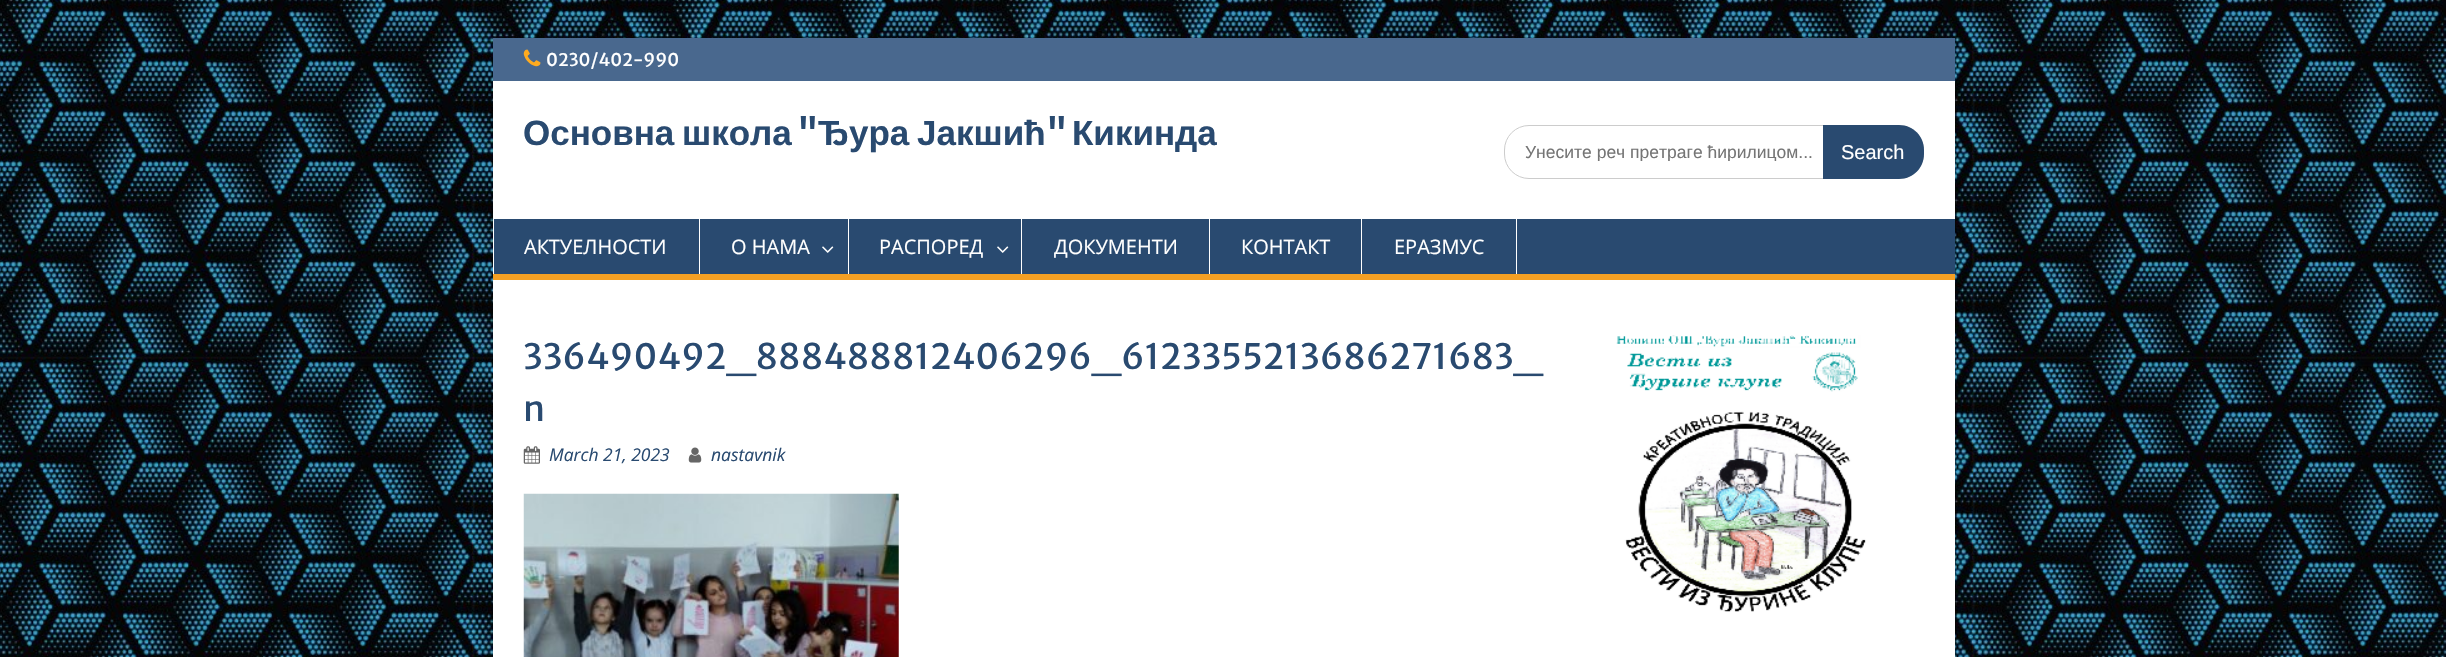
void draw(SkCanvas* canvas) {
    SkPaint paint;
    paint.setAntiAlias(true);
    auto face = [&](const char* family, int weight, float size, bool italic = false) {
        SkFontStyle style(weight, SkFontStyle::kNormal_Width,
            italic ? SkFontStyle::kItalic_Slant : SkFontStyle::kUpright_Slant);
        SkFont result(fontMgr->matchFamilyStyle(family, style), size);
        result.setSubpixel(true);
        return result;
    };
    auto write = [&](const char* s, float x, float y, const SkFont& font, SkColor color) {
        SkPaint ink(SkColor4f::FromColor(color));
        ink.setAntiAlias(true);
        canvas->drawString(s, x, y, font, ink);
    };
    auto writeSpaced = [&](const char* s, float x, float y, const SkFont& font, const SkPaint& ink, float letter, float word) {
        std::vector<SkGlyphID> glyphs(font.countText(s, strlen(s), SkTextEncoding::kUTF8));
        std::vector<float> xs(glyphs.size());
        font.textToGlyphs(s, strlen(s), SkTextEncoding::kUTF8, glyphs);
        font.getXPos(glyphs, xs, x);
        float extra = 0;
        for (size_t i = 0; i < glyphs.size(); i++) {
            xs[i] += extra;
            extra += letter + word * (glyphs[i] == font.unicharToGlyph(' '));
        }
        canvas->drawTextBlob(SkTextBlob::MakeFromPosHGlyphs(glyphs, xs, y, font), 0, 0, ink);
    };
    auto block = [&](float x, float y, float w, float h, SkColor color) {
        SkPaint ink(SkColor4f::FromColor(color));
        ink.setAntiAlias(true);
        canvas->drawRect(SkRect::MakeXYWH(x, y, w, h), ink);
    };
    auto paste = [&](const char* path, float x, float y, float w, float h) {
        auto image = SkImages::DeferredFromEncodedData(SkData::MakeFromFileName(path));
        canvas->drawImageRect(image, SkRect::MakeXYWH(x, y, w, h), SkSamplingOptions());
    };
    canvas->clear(SK_ColorWHITE);
    paste("pic1.png", 0, 0, 2446, 657);
    block(493, 81, 1462, 576, SK_ColorWHITE);
    block(493, 38, 1462, 43, SkColorSetRGB(73, 104, 142));
    paste("pic2.png", 523, 49, 18, 18);
    auto kFont1 = face("Merriweather Sans", 400, 17.5f);
    write("0230/402-990", 546, 66, kFont1, SK_ColorWHITE);
    auto kFont2 = face("Liberation Sans", 700, 35);
    paint.setColor(SkColorSetRGB(41, 74, 112));
    writeSpaced("Основна школа", 523, 145, kFont2, paint, 0, -2);
    auto kFont3 = face("Merriweather Sans", 700, 35);
    write("\"", 797, 145, kFont3, SkColorSetRGB(41, 74, 112));
    writeSpaced("Ђура Јакшић", 818, 145, kFont2, paint, 0, -2);
    write("\"", 1046, 145, kFont3, SkColorSetRGB(41, 74, 112));
    write("Кикинда", 1072, 145, kFont2, SkColorSetRGB(41, 74, 112));
    paint.setStyle(SkPaint::kStroke_Style);
    paint.setStrokeWidth(1);
    paint.setColor(SkColorSetRGB(204, 204, 204));
    canvas->drawRoundRect(SkRect::MakeXYWH(1504.5f, 125.5f, 419, 53), 24.5f, 24.5f, paint);
    canvas->save();
    canvas->clipRect(SkRect::MakeXYWH(1525, 141, 288, 20));
    auto kFont4 = face("Liberation Sans", 400, 17.5f);
    write("Унесите реч претраге ћирилицом...", 1525, 158, kFont4, SkColorSetRGB(117, 117, 117));
    canvas->restore();
    paint.setStyle(SkPaint::kFill_Style);
    paint.setColor(SkColorSetRGB(41, 74, 112));
    canvas->drawPath(SkPathBuilder().moveTo(1823, 125).lineTo(1899, 125).cubicTo(1913, 125, 1924, 136, 1924, 150).lineTo(1924, 154).cubicTo(1924, 168, 1913, 179, 1899, 179).lineTo(1823, 179).close().detach(), paint);
    auto kFont5 = face("Liberation Sans", 400, 20);
    write("Search", 1841, 159, kFont5, SK_ColorWHITE);
    block(494, 219, 1461, 55, SkColorSetRGB(41, 74, 112));
    block(493, 274, 1462, 6, SkColorSetRGB(244, 160, 36));
    block(699, 219, 1, 55, SK_ColorWHITE);
    auto kFont6 = face("Open Sans", 400, 20);
    write("АКТУЕЛНОСТИ", 524, 254, kFont6, SK_ColorWHITE);
    block(848, 219, 1, 55, SK_ColorWHITE);
    write("О НАМА", 731, 254, kFont6, SK_ColorWHITE);
    paste("pic3.png", 822, 246, 12, 7);
    block(1021, 219, 1, 55, SK_ColorWHITE);
    write("РАСПОРЕД", 879, 254, kFont6, SK_ColorWHITE);
    paste("pic3.png", 997, 246, 12, 7);
    block(1209, 219, 1, 55, SK_ColorWHITE);
    write("ДОКУМЕНТИ", 1054, 254, kFont6, SK_ColorWHITE);
    block(1361, 219, 1, 55, SK_ColorWHITE);
    write("КОНТАКТ", 1241, 254, kFont6, SK_ColorWHITE);
    block(1516, 219, 1, 55, SK_ColorWHITE);
    write("EРАЗМУС", 1394, 254, kFont6, SK_ColorWHITE);
    auto kFont7 = face("Merriweather Sans", 400, 35);
    write("336490492_888488812406296_6123355213686271683_", 523, 369, kFont7, SkColorSetRGB(41, 74, 112));
    write("n", 523, 421, kFont7, SkColorSetRGB(41, 74, 112));
    paste("pic4.png", 523, 446, 17, 18);
    auto kFont8 = face("Open Sans", 400, 17.5f, true);
    write("March 21, 2023", 549, 461, kFont8, SkColorSetRGB(41, 74, 112));
    paste("pic5.png", 688, 447, 14, 16);
    write("nastavnik", 711, 461, kFont8, SkColorSetRGB(41, 74, 112));
    paste("pic6.png", 523, 493, 376, 164);
    paste("pic7.png", 1616, 335, 250, 277);
}
